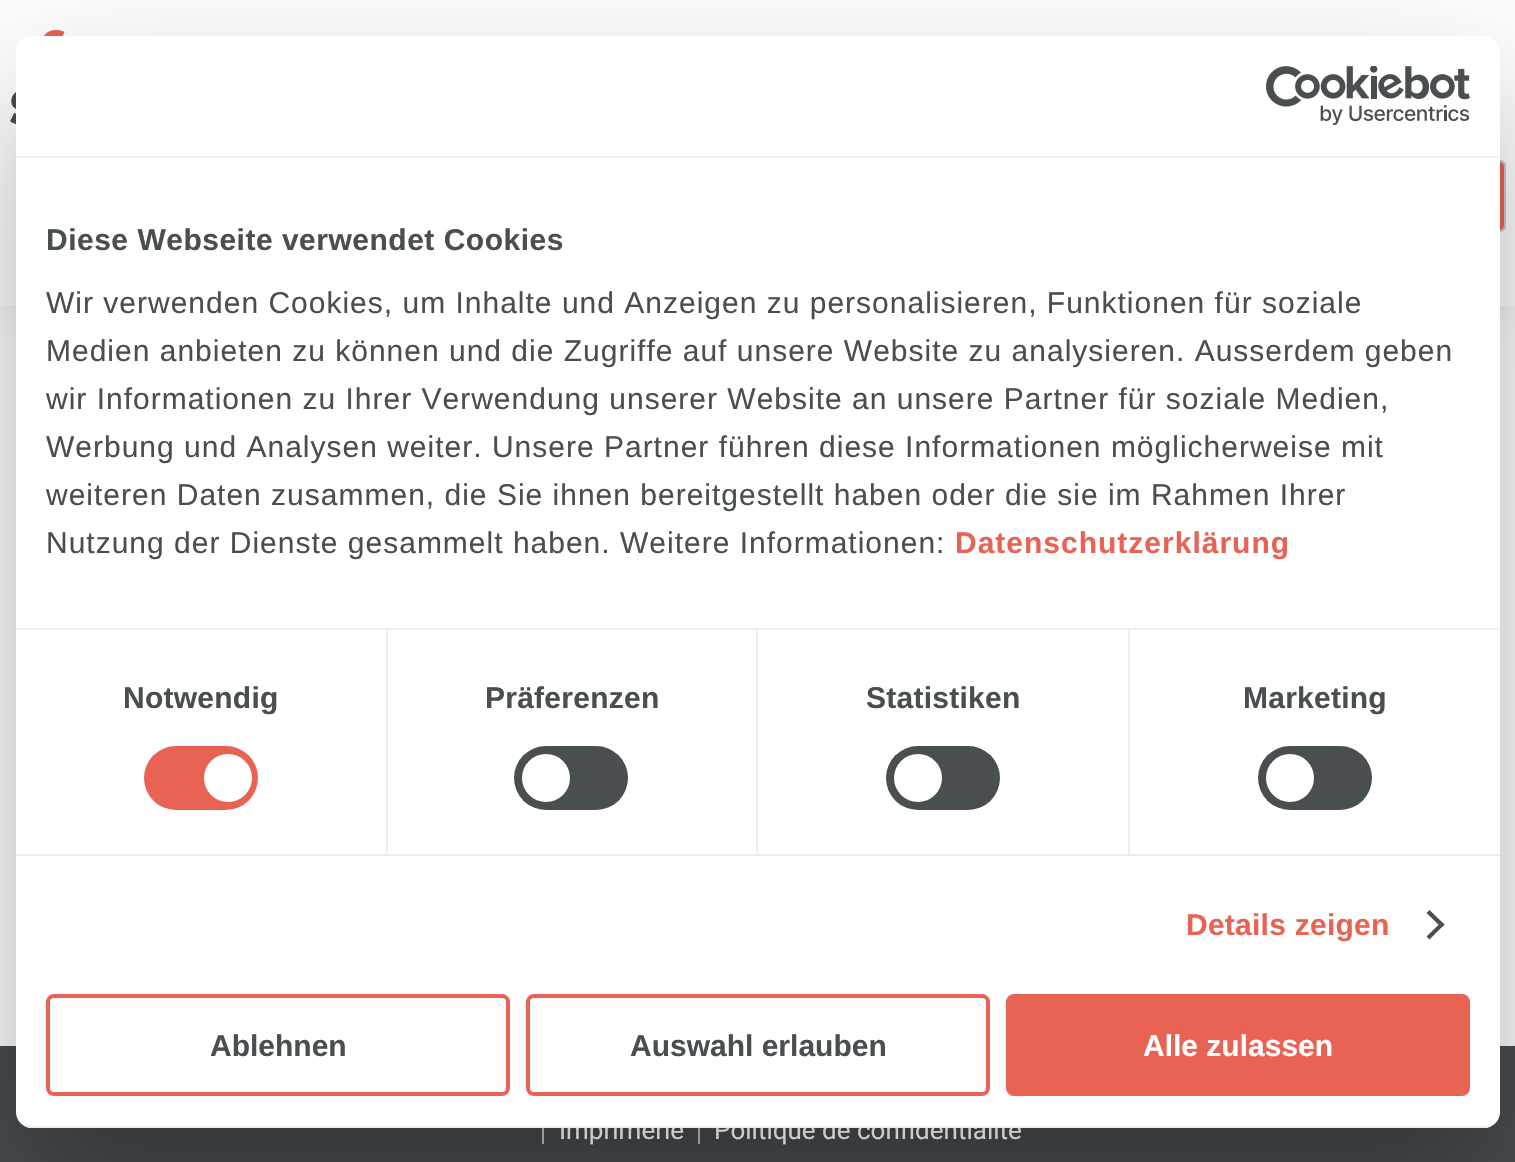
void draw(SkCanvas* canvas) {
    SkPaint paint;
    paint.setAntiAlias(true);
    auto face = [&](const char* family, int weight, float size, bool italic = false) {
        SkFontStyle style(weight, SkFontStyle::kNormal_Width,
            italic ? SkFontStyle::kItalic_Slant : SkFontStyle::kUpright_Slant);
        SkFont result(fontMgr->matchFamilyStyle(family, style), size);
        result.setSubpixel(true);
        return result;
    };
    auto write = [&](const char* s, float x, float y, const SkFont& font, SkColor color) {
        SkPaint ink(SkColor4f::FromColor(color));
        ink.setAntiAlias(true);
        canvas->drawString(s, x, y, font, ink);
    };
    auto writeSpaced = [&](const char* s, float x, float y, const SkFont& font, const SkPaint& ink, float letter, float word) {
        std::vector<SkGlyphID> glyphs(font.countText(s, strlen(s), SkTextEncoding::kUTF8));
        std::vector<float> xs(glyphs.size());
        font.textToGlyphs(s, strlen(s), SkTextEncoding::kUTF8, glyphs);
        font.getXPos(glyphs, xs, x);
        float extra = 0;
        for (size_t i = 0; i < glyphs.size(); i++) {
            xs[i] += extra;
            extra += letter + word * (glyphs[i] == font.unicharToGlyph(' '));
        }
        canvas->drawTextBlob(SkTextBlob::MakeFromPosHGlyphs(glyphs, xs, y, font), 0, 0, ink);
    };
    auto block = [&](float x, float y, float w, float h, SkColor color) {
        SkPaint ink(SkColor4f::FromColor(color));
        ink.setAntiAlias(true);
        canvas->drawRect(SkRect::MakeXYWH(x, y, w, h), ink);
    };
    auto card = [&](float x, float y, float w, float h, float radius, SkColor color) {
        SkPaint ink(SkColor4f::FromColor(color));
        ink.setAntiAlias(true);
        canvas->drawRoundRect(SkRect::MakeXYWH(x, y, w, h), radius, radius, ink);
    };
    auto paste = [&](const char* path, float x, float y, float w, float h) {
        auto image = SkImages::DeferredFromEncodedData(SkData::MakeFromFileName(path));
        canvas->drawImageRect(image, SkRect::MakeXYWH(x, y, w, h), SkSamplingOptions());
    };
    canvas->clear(SK_ColorWHITE);
    paint.setColor(SkColorSetARGB(26, 0, 0, 0));
    paint.setMaskFilter(SkMaskFilter::MakeBlur(kNormal_SkBlurStyle, 20));
    canvas->drawRect(SkRect::MakeXYWH(0, 0, 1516, 306), paint);
    paint.setMaskFilter(nullptr);
    block(0, 0, 1515, 306, SK_ColorWHITE);
    paste("pic2.png", 10, 30, 55, 94);
    paint.setStyle(SkPaint::kStroke_Style);
    paint.setStrokeWidth(2);
    paint.setColor(SkColorSetRGB(204, 204, 204));
    canvas->drawRoundRect(SkRect::MakeXYWH(255, 161, 1250, 70), 5, 5, paint);
    paint.setStyle(SkPaint::kFill_Style);
    paint.setColor(SkColorSetRGB(233, 99, 84));
    canvas->drawPath(SkPathBuilder().moveTo(1432, 162).lineTo(1500, 162).cubicTo(1502, 162, 1504, 164, 1504, 166).lineTo(1504, 226).cubicTo(1504, 228, 1502, 230, 1500, 230).lineTo(1432, 230).close().detach(), paint);
    block(0, 1046, 1515, 116, SkColorSetRGB(73, 77, 80));
    block(542, 1128, 2, 16, SkColorSetRGB(204, 204, 204));
    block(698, 1128, 2, 16, SkColorSetRGB(204, 204, 204));
    paint.setColor(SkColorSetARGB(77, 0, 0, 0));
    paint.setMaskFilter(SkMaskFilter::MakeBlur(kNormal_SkBlurStyle, 68));
    canvas->drawRoundRect(SkRect::MakeXYWH(16, 100, 1484, 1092), 16, 16, paint);
    paint.setMaskFilter(nullptr);
    auto kFont1 = face("Roboto", 400, 26);
    write("Imprimerie", 559, 1139, kFont1, SkColorSetRGB(204, 204, 204));
    write("Politique de confidentialité", 714, 1139, kFont1, SkColorSetRGB(204, 204, 204));
    card(16, 36, 1484, 1092, 16, SK_ColorWHITE);
    block(16, 156, 1484, 2, SkColorSetRGB(238, 238, 238));
    paste("pic1.png", 1266, 66, 204, 60);
    block(16, 628, 1484, 2, SkColorSetRGB(238, 238, 238));
    auto kFont2 = face("Liberation Sans", 700, 30);
    paint.setColor(SkColorSetRGB(73, 78, 80));
    writeSpaced("Diese Webseite verwendet Cookies", 46, 250, kFont2, paint, 0.5f, 0);
    auto kFont3 = face("Liberation Sans", 400, 30);
    writeSpaced("Wir verwenden Cookies, um Inhalte und Anzeigen zu personalisieren, Funktionen für soziale", 46, 313, kFont3, paint, 1, 0);
    writeSpaced("Medien anbieten zu können und die Zugriffe auf unsere Website zu analysieren. Ausserdem geben", 46, 361, kFont3, paint, 1, 0);
    writeSpaced("wir Informationen zu Ihrer Verwendung unserer Website an unsere Partner für soziale Medien,", 46, 409, kFont3, paint, 1, 0);
    writeSpaced("Werbung und Analysen weiter. Unsere Partner führen diese Informationen möglicherweise mit", 46, 457, kFont3, paint, 1, 0);
    writeSpaced("weiteren Daten zusammen, die Sie ihnen bereitgestellt haben oder die sie im Rahmen Ihrer", 46, 505, kFont3, paint, 1, 0);
    writeSpaced("Nutzung der Dienste gesammelt haben. Weitere Informationen:", 46, 553, kFont3, paint, 1, 0);
    paint.setColor(SkColorSetRGB(233, 99, 84));
    writeSpaced("Datenschutzerklärung", 955, 553, kFont2, paint, 1, 0);
    block(16, 854, 1484, 2, SkColorSetRGB(238, 238, 238));
    block(386, 630, 2, 224, SkColorSetRGB(238, 238, 238));
    paint.setColor(SkColorSetRGB(73, 78, 80));
    writeSpaced("Notwendig", 123, 708, kFont2, paint, 0.25f, 0);
    card(144, 746, 114, 64, 32, SkColorSetRGB(233, 99, 84));
    paint.setColor(SK_ColorWHITE);
    canvas->drawCircle(228, 778, 24, paint);
    block(756, 630, 2, 224, SkColorSetRGB(238, 238, 238));
    paint.setColor(SkColorSetRGB(73, 78, 80));
    writeSpaced("Präferenzen", 485, 708, kFont2, paint, 0.25f, 0);
    card(514, 746, 114, 64, 32, SkColorSetRGB(73, 78, 80));
    paint.setColor(SK_ColorWHITE);
    canvas->drawCircle(546, 778, 24, paint);
    block(1128, 630, 2, 224, SkColorSetRGB(238, 238, 238));
    paint.setColor(SkColorSetRGB(73, 78, 80));
    writeSpaced("Statistiken", 866, 708, kFont2, paint, 0.25f, 0);
    card(886, 746, 114, 64, 32, SkColorSetRGB(73, 78, 80));
    paint.setColor(SK_ColorWHITE);
    canvas->drawCircle(918, 778, 24, paint);
    paint.setColor(SkColorSetRGB(73, 78, 80));
    writeSpaced("Marketing", 1243, 708, kFont2, paint, 0.25f, 0);
    card(1258, 746, 114, 64, 32, SkColorSetRGB(73, 78, 80));
    paint.setColor(SK_ColorWHITE);
    canvas->drawCircle(1290, 778, 24, paint);
    paint.setColor(SkColorSetRGB(233, 99, 84));
    writeSpaced("Details zeigen", 1186, 935, kFont2, paint, 0.25f, 0);
    paint.setColor(SkColorSetRGB(73, 78, 80));
    canvas->drawPath(SkPathBuilder().moveTo(1429.5f, 910).lineTo(1444.5f, 924.5f).lineTo(1441.5f, 927.5f).lineTo(1426.5f, 913).close().detach(), paint);
    canvas->drawPath(SkPathBuilder().moveTo(1441.5f, 922).lineTo(1444.5f, 924.5f).lineTo(1429.5f, 939.5f).lineTo(1426.5f, 936.5f).close().detach(), paint);
    canvas->save();
    canvas->clipPath(SkPathBuilder().moveTo(32, 36).lineTo(1484, 36).cubicTo(1493, 36, 1500, 43, 1500, 52).lineTo(1500, 1112).cubicTo(1500, 1121, 1493, 1128, 1484, 1128).lineTo(32, 1128).cubicTo(23, 1128, 16, 1121, 16, 1112).lineTo(16, 52).cubicTo(16, 43, 23, 36, 32, 36).close().detach(), true);
    block(16, 1126, 1484, 2, SkColorSetRGB(238, 238, 238));
    canvas->restore();
    paint.setStyle(SkPaint::kStroke_Style);
    paint.setStrokeWidth(4);
    paint.setColor(SkColorSetRGB(233, 99, 84));
    canvas->drawRoundRect(SkRect::MakeXYWH(48, 996, 460, 98), 6, 6, paint);
    write("Ablehnen", 210, 1056, kFont2, SkColorSetRGB(73, 78, 80));
    canvas->drawRoundRect(SkRect::MakeXYWH(528, 996, 460, 98), 6, 6, paint);
    write("Auswahl erlauben", 630, 1056, kFont2, SkColorSetRGB(73, 78, 80));
    paint.setStyle(SkPaint::kFill_Style);
    canvas->drawRoundRect(SkRect::MakeXYWH(1008, 996, 460, 98), 6, 6, paint);
    paint.setStyle(SkPaint::kStroke_Style);
    canvas->drawRoundRect(SkRect::MakeXYWH(1008, 996, 460, 98), 6, 6, paint);
    write("Alle zulassen", 1143, 1056, kFont2, SK_ColorWHITE);
}
